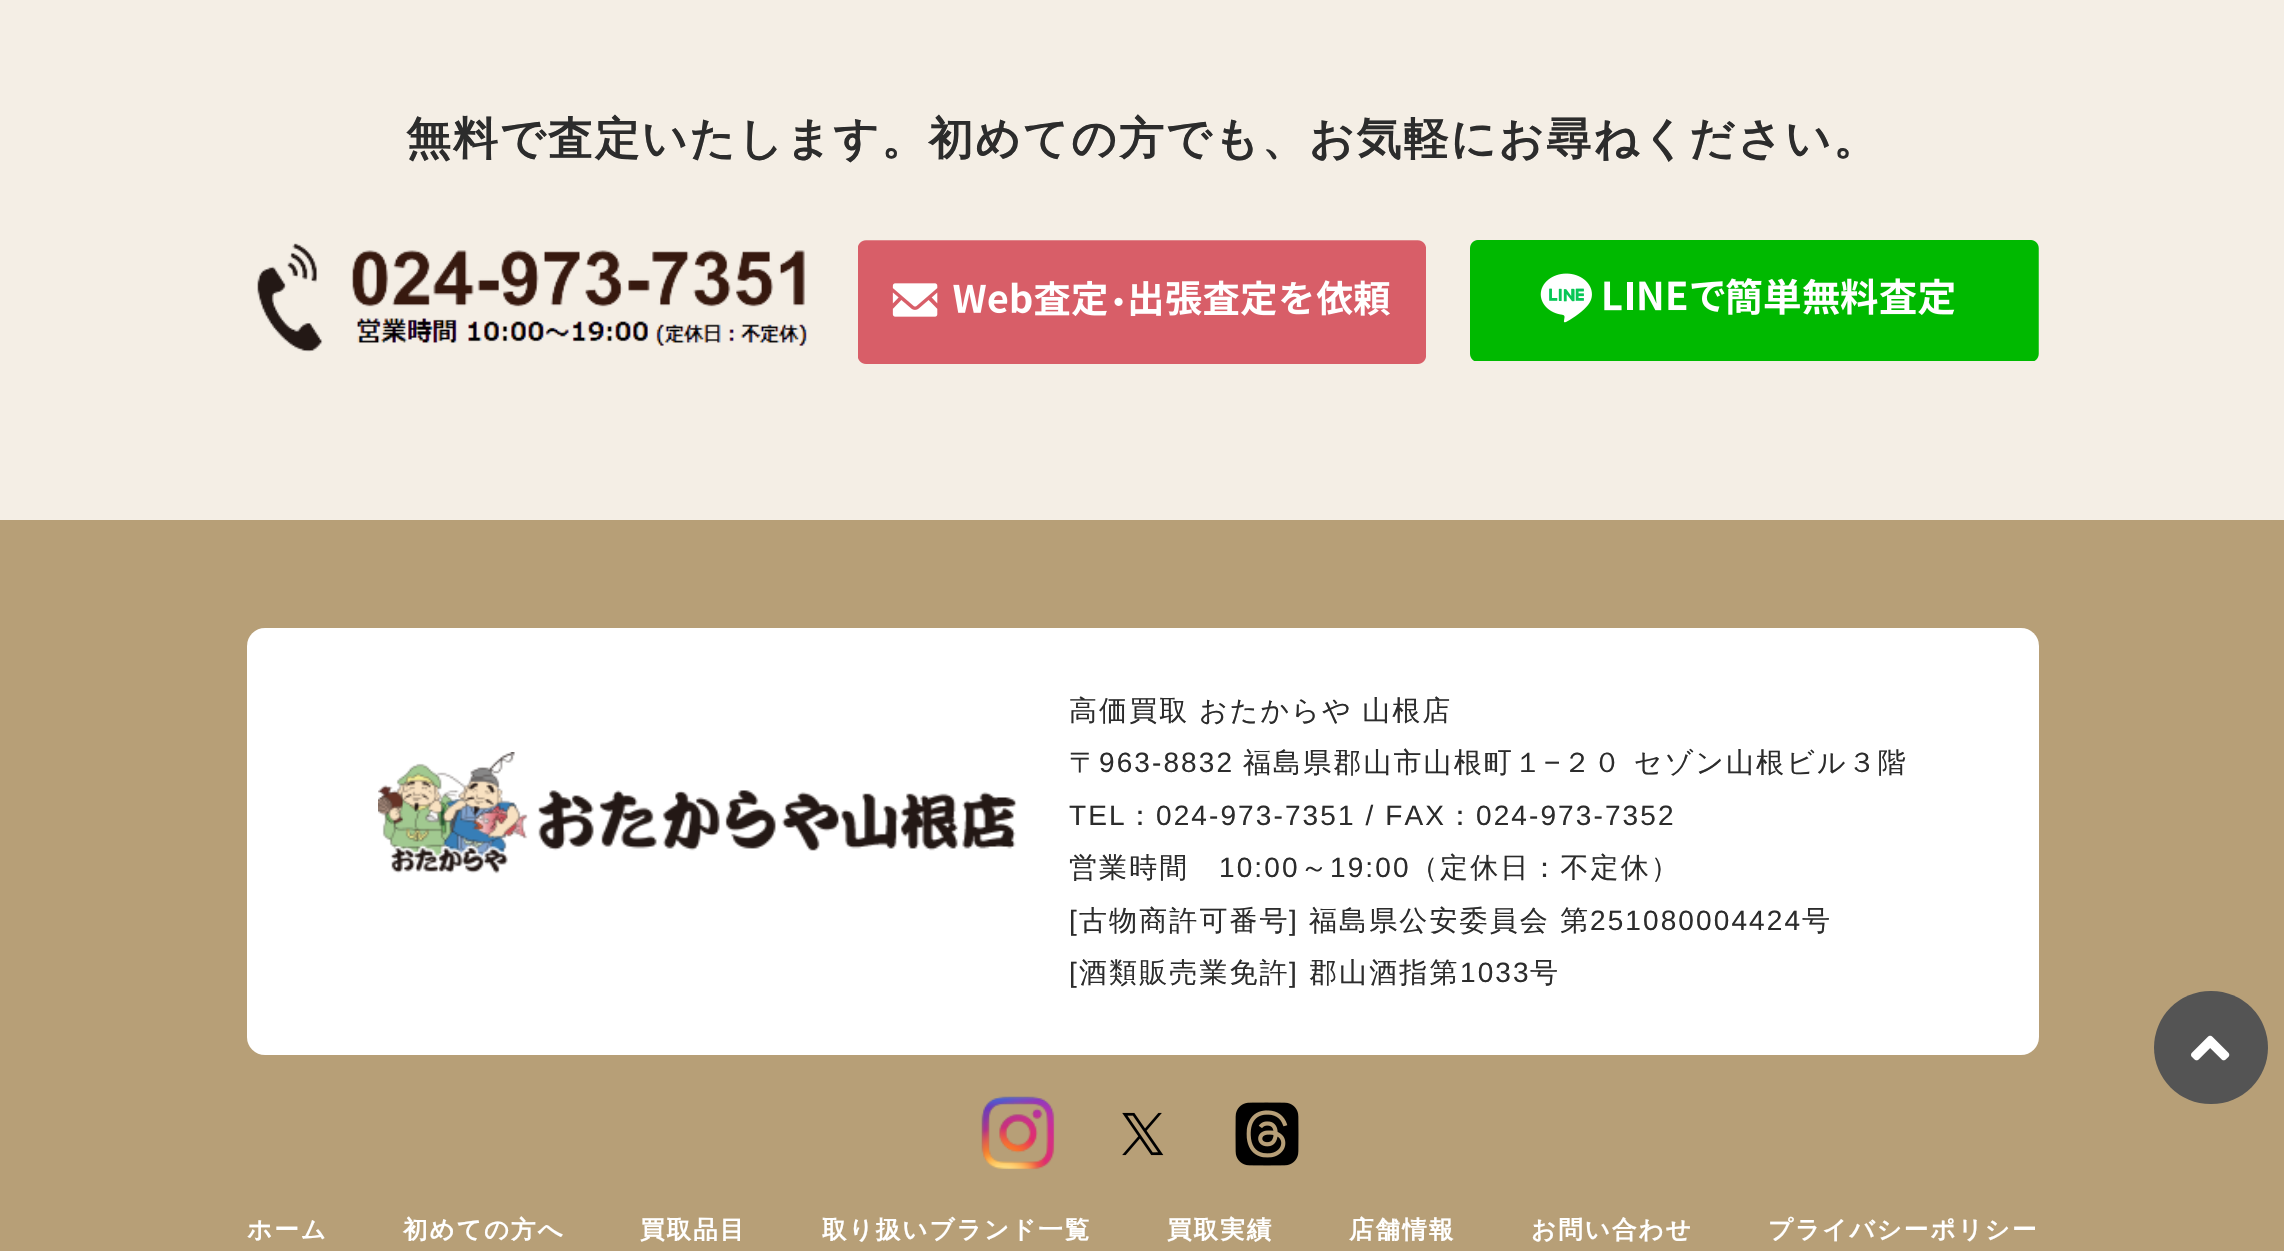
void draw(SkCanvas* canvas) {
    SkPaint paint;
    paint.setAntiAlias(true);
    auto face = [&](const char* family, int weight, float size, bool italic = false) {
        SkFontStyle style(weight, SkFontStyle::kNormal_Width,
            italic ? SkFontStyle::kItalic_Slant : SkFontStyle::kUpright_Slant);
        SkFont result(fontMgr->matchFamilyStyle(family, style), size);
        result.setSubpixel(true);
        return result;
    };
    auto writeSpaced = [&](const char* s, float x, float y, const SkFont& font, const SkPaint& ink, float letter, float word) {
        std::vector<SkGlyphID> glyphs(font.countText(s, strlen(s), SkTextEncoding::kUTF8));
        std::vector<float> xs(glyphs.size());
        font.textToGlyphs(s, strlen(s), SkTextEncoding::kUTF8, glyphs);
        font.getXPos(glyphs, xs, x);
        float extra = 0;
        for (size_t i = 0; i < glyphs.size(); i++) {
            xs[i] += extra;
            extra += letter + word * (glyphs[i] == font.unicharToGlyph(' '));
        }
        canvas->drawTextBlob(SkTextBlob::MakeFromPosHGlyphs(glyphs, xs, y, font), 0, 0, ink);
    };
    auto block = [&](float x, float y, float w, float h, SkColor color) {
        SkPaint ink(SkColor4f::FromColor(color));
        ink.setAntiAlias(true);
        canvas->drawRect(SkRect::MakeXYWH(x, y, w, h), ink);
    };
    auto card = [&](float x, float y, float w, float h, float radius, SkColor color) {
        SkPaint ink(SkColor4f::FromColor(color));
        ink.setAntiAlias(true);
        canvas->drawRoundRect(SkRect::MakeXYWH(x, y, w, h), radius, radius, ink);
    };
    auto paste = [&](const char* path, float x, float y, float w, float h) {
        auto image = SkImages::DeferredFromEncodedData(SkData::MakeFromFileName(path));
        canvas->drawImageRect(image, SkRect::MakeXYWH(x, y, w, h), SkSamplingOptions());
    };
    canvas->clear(SkColorSetRGB(244, 238, 229));
    auto kFont1 = face("WenQuanYi Zen Hei", 700, 44.8f);
    paint.setColor(SkColorSetRGB(44, 44, 44));
    writeSpaced("無料で査定いたします。初めての方でも、お気軽にお尋ねください。", 406, 154, kFont1, paint, 2.1f, 0);
    paste("pic1.png", 257, 243, 550, 109);
    paste("pic2.png", 858, 240, 568, 124);
    paste("pic3.png", 1470, 240, 569, 121);
    block(0, 520, 2284, 731, SkColorSetRGB(183, 159, 119));
    card(247, 628, 1792, 427, 18, SK_ColorWHITE);
    paste("pic4.png", 378, 752, 639, 122);
    auto kFont2 = face("WenQuanYi Zen Hei", 500, 28);
    writeSpaced("高価買取 おたからや 山根店", 1069, 720, kFont2, paint, 2.1f, -1);
    writeSpaced("〒", 1069, 772, kFont2, paint, 2.1f, 0);
    auto kFont3 = face("Liberation Sans", 400, 28);
    writeSpaced("963-8832", 1099, 772, kFont3, paint, 2.1f, 0);
    writeSpaced("福島県郡山市山根町１", 1243, 772, kFont2, paint, 2.1f, 0);
    writeSpaced("−", 1544, 772, kFont3, paint, 2.1f, 0);
    writeSpaced("２０ セゾン山根ビル３階", 1563, 772, kFont2, paint, 2.1f, 0);
    writeSpaced("TEL", 1069, 825, kFont3, paint, 2.1f, 0);
    writeSpaced("：", 1126, 825, kFont2, paint, 2.1f, 0);
    writeSpaced("024-973-7351 / FAX", 1156, 825, kFont3, paint, 2.1f, 0);
    writeSpaced("：", 1446, 825, kFont2, paint, 2.1f, 0);
    writeSpaced("024-973-7352", 1476, 825, kFont3, paint, 2.1f, 0);
    writeSpaced("営業時間", 1069, 877, kFont2, paint, 2.1f, 0);
    writeSpaced("10:00", 1219, 877, kFont3, paint, 2.1f, 0);
    writeSpaced("～", 1300, 877, kFont2, paint, 2.1f, 0);
    writeSpaced("19:00", 1330, 877, kFont3, paint, 2.1f, 0);
    writeSpaced("（定休日：不定休）", 1410, 877, kFont2, paint, 2.1f, 0);
    writeSpaced("[", 1069, 930, kFont3, paint, 2.1f, 0);
    writeSpaced("古物商許可番号", 1079, 930, kFont2, paint, 2.1f, 0);
    writeSpaced("]", 1289, 930, kFont3, paint, 2.1f, 0);
    writeSpaced("福島県公安委員会 第", 1309, 930, kFont2, paint, 2.1f, 0);
    writeSpaced("251080004424", 1590, 930, kFont3, paint, 2.1f, 0);
    writeSpaced("号", 1802, 930, kFont2, paint, 2.1f, 0);
    writeSpaced("[", 1069, 982, kFont3, paint, 2.1f, 0);
    writeSpaced("酒類販売業免許", 1079, 982, kFont2, paint, 2.1f, 0);
    writeSpaced("]", 1289, 982, kFont3, paint, 2.1f, 0);
    writeSpaced("郡山酒指第", 1309, 982, kFont2, paint, 2.1f, 0);
    writeSpaced("1033", 1460, 982, kFont3, paint, 2.1f, 0);
    writeSpaced("号", 1530, 982, kFont2, paint, 2.1f, 0);
    paste("pic5.png", 981, 1096, 74, 74);
    paste("pic6.png", 1122, 1112, 42, 44);
    paste("pic7.png", 1235, 1102, 64, 64);
    auto kFont4 = face("WenQuanYi Zen Hei", 700, 24.5f);
    paint.setColor(SK_ColorWHITE);
    writeSpaced("ホーム", 247, 1238, kFont4, paint, 2.1f, 0);
    writeSpaced("初めての方へ", 403, 1238, kFont4, paint, 2.1f, 0);
    writeSpaced("買取品目", 640, 1238, kFont4, paint, 2.1f, 0);
    writeSpaced("取り扱いブランド一覧", 822, 1238, kFont4, paint, 2.1f, 0);
    writeSpaced("買取実績", 1167, 1238, kFont4, paint, 2.1f, 0);
    writeSpaced("店舗情報", 1349, 1238, kFont4, paint, 2.1f, 0);
    writeSpaced("お問い合わせ", 1531, 1238, kFont4, paint, 2.1f, 0);
    writeSpaced("プライバシーポリシー", 1768, 1238, kFont4, paint, 2.1f, 0);
    card(2154, 991, 114, 113, 56.5f, SkColorSetRGB(84, 84, 84));
    paste("pic8.png", 2191, 1035, 39, 26);
}
